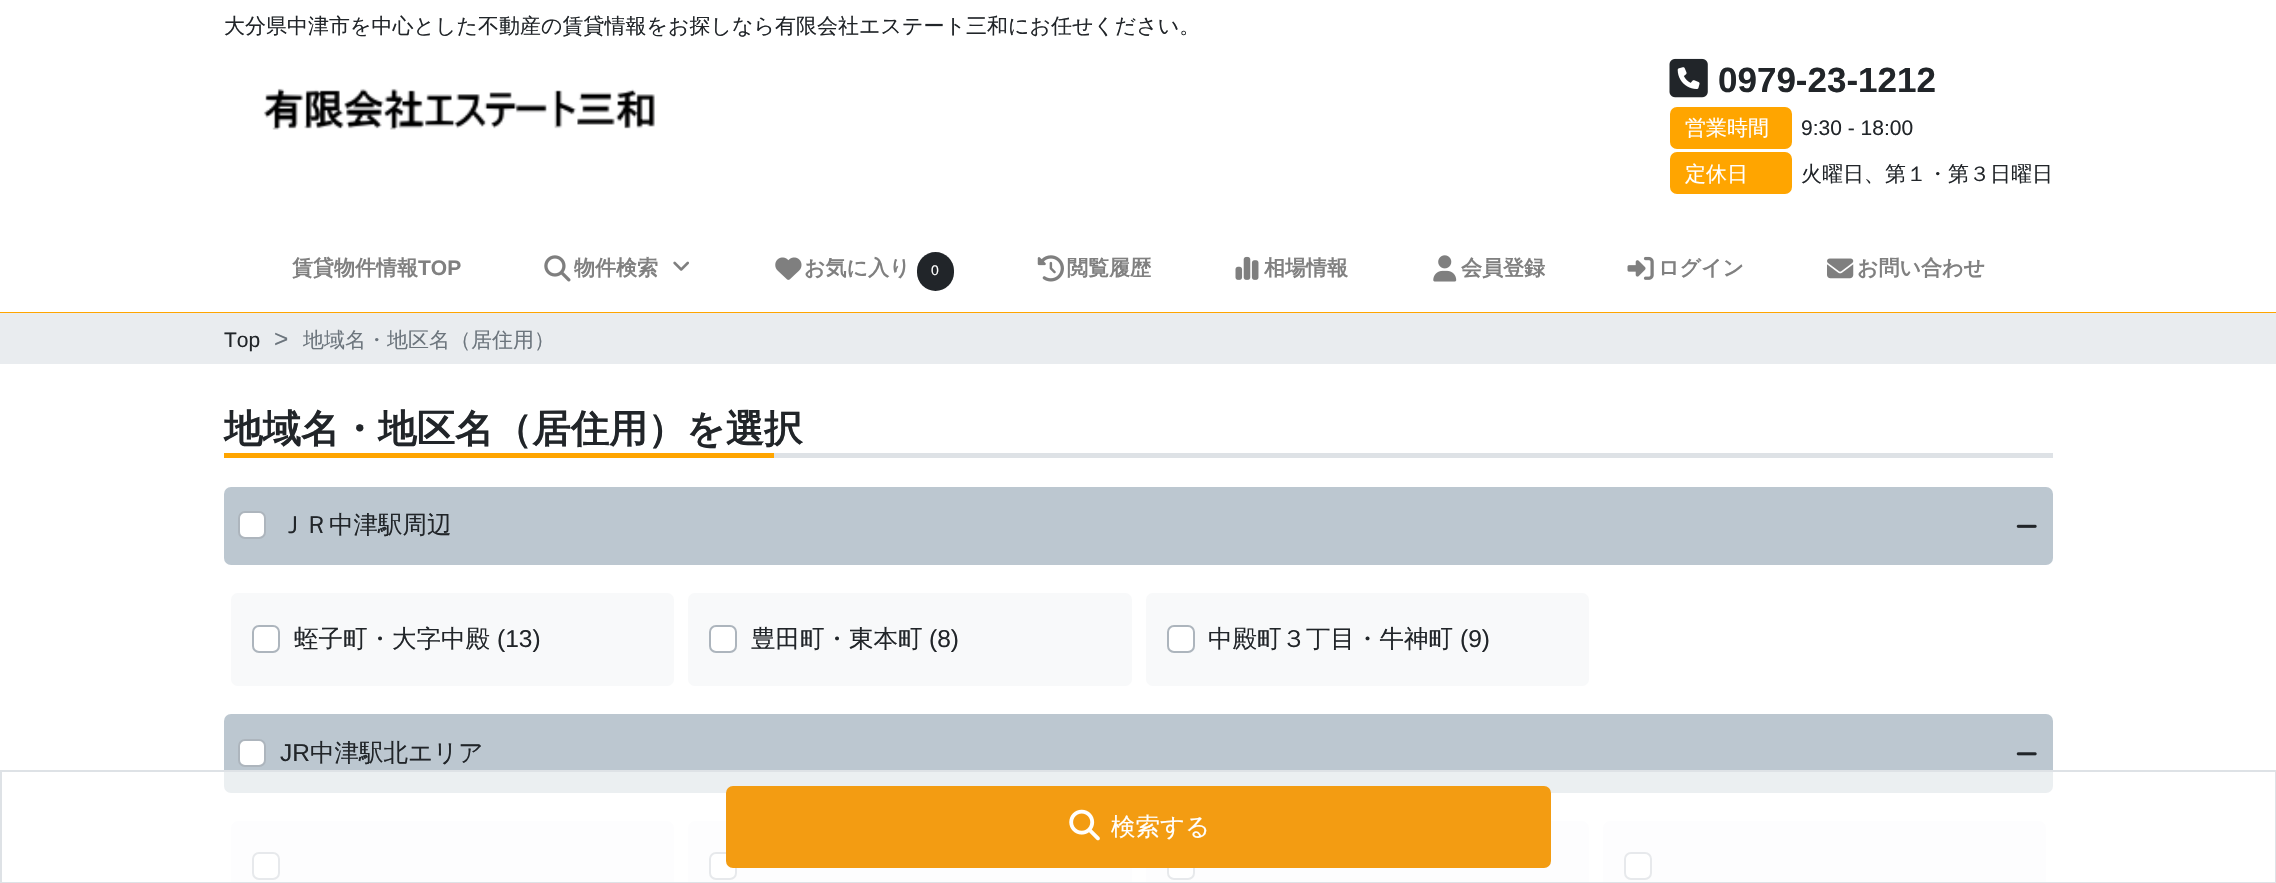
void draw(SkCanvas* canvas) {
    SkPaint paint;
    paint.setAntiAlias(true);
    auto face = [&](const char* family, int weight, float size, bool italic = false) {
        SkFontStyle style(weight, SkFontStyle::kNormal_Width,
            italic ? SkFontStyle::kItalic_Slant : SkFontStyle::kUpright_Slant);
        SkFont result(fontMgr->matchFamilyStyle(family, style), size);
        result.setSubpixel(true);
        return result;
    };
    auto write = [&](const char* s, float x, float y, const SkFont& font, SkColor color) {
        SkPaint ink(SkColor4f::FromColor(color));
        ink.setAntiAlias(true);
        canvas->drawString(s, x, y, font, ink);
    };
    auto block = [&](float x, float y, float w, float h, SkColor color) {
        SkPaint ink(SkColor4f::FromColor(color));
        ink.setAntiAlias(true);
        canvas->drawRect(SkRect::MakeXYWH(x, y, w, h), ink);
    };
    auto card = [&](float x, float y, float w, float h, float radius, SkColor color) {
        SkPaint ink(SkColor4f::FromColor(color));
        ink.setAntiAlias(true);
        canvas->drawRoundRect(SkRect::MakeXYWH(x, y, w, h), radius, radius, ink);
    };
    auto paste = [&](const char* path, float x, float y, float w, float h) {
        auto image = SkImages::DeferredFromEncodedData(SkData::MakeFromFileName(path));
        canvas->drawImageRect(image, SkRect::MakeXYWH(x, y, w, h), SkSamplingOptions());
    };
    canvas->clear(SK_ColorWHITE);
    block(0, 312, 2276, 1, SkColorSetRGB(255, 165, 0));
    auto kFont1 = face("WenQuanYi Zen Hei", 500, 21);
    write("大分県中津市を中心とした不動産の賃貸情報をお探しなら有限会社エステート三和にお任せください。", 224, 33, kFont1, SkColorSetRGB(33, 37, 41));
    paste("pic1.png", 263, 88, 392, 42);
    paste("pic2.png", 1669, 58, 39, 40);
    auto kFont2 = face("Liberation Sans", 700, 35);
    write("0979-23-1212", 1718, 92, kFont2, SkColorSetRGB(33, 37, 41));
    paint.setColor(SkColorSetRGB(255, 165, 0));
    canvas->drawRoundRect(SkRect::MakeXYWH(1671, 108, 120, 40), 6, 6, paint);
    paint.setStyle(SkPaint::kStroke_Style);
    paint.setStrokeWidth(2);
    canvas->drawRoundRect(SkRect::MakeXYWH(1671, 108, 120, 40), 6, 6, paint);
    write("営業時間", 1685, 135, kFont1, SK_ColorWHITE);
    auto kFont3 = face("Liberation Sans", 400, 21);
    write("9:30 - 18:00", 1801, 135, kFont3, SkColorSetRGB(33, 37, 41));
    paint.setStyle(SkPaint::kFill_Style);
    canvas->drawRoundRect(SkRect::MakeXYWH(1671, 153, 120, 40), 6, 6, paint);
    paint.setStyle(SkPaint::kStroke_Style);
    canvas->drawRoundRect(SkRect::MakeXYWH(1671, 153, 120, 40), 6, 6, paint);
    write("定休日", 1685, 181, kFont1, SK_ColorWHITE);
    write("火曜日、第１・第３日曜日", 1801, 181, kFont1, SkColorSetRGB(33, 37, 41));
    auto kFont4 = face("WenQuanYi Zen Hei", 700, 21);
    write("賃貸物件情報", 292, 275, kFont4, SkColorSetRGB(128, 128, 128));
    auto kFont5 = face("Liberation Sans", 700, 21);
    write("TOP", 418, 275, kFont5, SkColorSetRGB(128, 128, 128));
    paste("pic3.png", 544, 255, 27, 27);
    write("物件検索", 574, 275, kFont4, SkColorSetRGB(128, 128, 128));
    paste("pic4.png", 673, 261, 16, 10);
    paste("pic5.png", 775, 257, 27, 23);
    write("お気に入り", 804, 275, kFont4, SkColorSetRGB(128, 128, 128));
    card(917, 252, 37, 39, 18.5f, SkColorSetRGB(33, 37, 41));
    auto kFont6 = face("Liberation Sans", 400, 14);
    write("0", 931, 275, kFont6, SK_ColorWHITE);
    paste("pic6.png", 1037, 255, 27, 27);
    write("閲覧履歴", 1067, 275, kFont4, SkColorSetRGB(128, 128, 128));
    paste("pic7.png", 1235, 256, 24, 24);
    write("相場情報", 1264, 275, kFont4, SkColorSetRGB(128, 128, 128));
    paste("pic8.png", 1433, 255, 24, 27);
    write("会員登録", 1461, 275, kFont4, SkColorSetRGB(128, 128, 128));
    paste("pic9.png", 1627, 256, 27, 24);
    write("ログイン", 1658, 275, kFont4, SkColorSetRGB(128, 128, 128));
    paste("pic10.png", 1827, 258, 27, 21);
    write("お問い合わせ", 1857, 275, kFont4, SkColorSetRGB(128, 128, 128));
    block(0, 313, 2276, 51, SkColorSetRGB(233, 236, 239));
    write("Top", 224, 347, kFont3, SkColorSetRGB(33, 37, 41));
    auto kFont7 = face("Liberation Sans", 400, 24.5f);
    write(">", 274, 347, kFont7, SkColorSetRGB(108, 117, 125));
    write("地域名・地区名（居住用）", 303, 347, kFont1, SkColorSetRGB(108, 117, 125));
    block(774, 453, 1279, 5, SkColorSetRGB(222, 226, 230));
    auto kFont8 = face("WenQuanYi Zen Hei", 700, 38.5f);
    write("地域名・地区名（居住用）を選択", 224, 442, kFont8, SkColorSetRGB(33, 37, 41));
    block(224, 453, 550, 5, SkColorSetRGB(255, 165, 0));
    card(224, 487, 1829, 78, 7, SkColorSetRGB(188, 199, 208));
    paint.setStyle(SkPaint::kFill_Style);
    paint.setColor(SK_ColorWHITE);
    canvas->drawRoundRect(SkRect::MakeXYWH(239, 512, 26, 26), 6, 6, paint);
    paint.setStyle(SkPaint::kStroke_Style);
    paint.setColor(SkColorSetRGB(173, 181, 189));
    canvas->drawRoundRect(SkRect::MakeXYWH(239, 512, 26, 26), 6, 6, paint);
    auto kFont9 = face("WenQuanYi Zen Hei", 500, 24.5f);
    write("ＪＲ中津駅周辺", 280, 533, kFont9, SkColorSetRGB(33, 37, 41));
    paste("pic11.png", 2016, 524, 21, 4);
    card(231, 593, 443, 93, 7, SkColorSetRGB(248, 249, 250));
    paint.setStyle(SkPaint::kFill_Style);
    paint.setColor(SK_ColorWHITE);
    canvas->drawRoundRect(SkRect::MakeXYWH(253, 626, 26, 26), 6, 6, paint);
    paint.setStyle(SkPaint::kStroke_Style);
    paint.setColor(SkColorSetRGB(173, 181, 189));
    canvas->drawRoundRect(SkRect::MakeXYWH(253, 626, 26, 26), 6, 6, paint);
    write("蛭子町・大字中殿", 294, 647, kFont9, SkColorSetRGB(33, 37, 41));
    write("(13)", 497, 647, kFont7, SkColorSetRGB(33, 37, 41));
    card(688, 593, 444, 93, 7, SkColorSetRGB(248, 249, 250));
    paint.setStyle(SkPaint::kFill_Style);
    paint.setColor(SK_ColorWHITE);
    canvas->drawRoundRect(SkRect::MakeXYWH(710, 626, 26, 26), 6, 6, paint);
    paint.setStyle(SkPaint::kStroke_Style);
    paint.setColor(SkColorSetRGB(173, 181, 189));
    canvas->drawRoundRect(SkRect::MakeXYWH(710, 626, 26, 26), 6, 6, paint);
    write("豊田町・東本町", 751, 647, kFont9, SkColorSetRGB(33, 37, 41));
    write("(8)", 929, 647, kFont7, SkColorSetRGB(33, 37, 41));
    card(1146, 593, 443, 93, 7, SkColorSetRGB(248, 249, 250));
    paint.setStyle(SkPaint::kFill_Style);
    paint.setColor(SK_ColorWHITE);
    canvas->drawRoundRect(SkRect::MakeXYWH(1168, 626, 26, 26), 6, 6, paint);
    paint.setStyle(SkPaint::kStroke_Style);
    paint.setColor(SkColorSetRGB(173, 181, 189));
    canvas->drawRoundRect(SkRect::MakeXYWH(1168, 626, 26, 26), 6, 6, paint);
    write("中殿町３丁目・牛神町", 1208, 647, kFont9, SkColorSetRGB(33, 37, 41));
    write("(9)", 1460, 647, kFont7, SkColorSetRGB(33, 37, 41));
    card(224, 714, 1829, 79, 7, SkColorSetRGB(188, 199, 208));
    paint.setStyle(SkPaint::kFill_Style);
    paint.setColor(SK_ColorWHITE);
    canvas->drawRoundRect(SkRect::MakeXYWH(239, 740, 26, 26), 6, 6, paint);
    paint.setStyle(SkPaint::kStroke_Style);
    paint.setColor(SkColorSetRGB(173, 181, 189));
    canvas->drawRoundRect(SkRect::MakeXYWH(239, 740, 26, 26), 6, 6, paint);
    write("JR", 280, 761, kFont7, SkColorSetRGB(33, 37, 41));
    write("中津駅北エリア", 310, 761, kFont9, SkColorSetRGB(33, 37, 41));
    paste("pic12.png", 2016, 752, 21, 4);
    card(231, 821, 443, 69, 7, SkColorSetRGB(248, 249, 250));
    paint.setStyle(SkPaint::kFill_Style);
    paint.setColor(SK_ColorWHITE);
    canvas->drawRoundRect(SkRect::MakeXYWH(253, 853, 26, 26), 6, 6, paint);
    paint.setStyle(SkPaint::kStroke_Style);
    paint.setColor(SkColorSetRGB(173, 181, 189));
    canvas->drawRoundRect(SkRect::MakeXYWH(253, 853, 26, 26), 6, 6, paint);
    card(688, 821, 444, 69, 7, SkColorSetRGB(248, 249, 250));
    paint.setStyle(SkPaint::kFill_Style);
    paint.setColor(SK_ColorWHITE);
    canvas->drawRoundRect(SkRect::MakeXYWH(710, 853, 26, 26), 6, 6, paint);
    paint.setStyle(SkPaint::kStroke_Style);
    paint.setColor(SkColorSetRGB(173, 181, 189));
    canvas->drawRoundRect(SkRect::MakeXYWH(710, 853, 26, 26), 6, 6, paint);
    card(1146, 821, 443, 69, 7, SkColorSetRGB(248, 249, 250));
    paint.setStyle(SkPaint::kFill_Style);
    paint.setColor(SK_ColorWHITE);
    canvas->drawRoundRect(SkRect::MakeXYWH(1168, 853, 26, 26), 6, 6, paint);
    paint.setStyle(SkPaint::kStroke_Style);
    paint.setColor(SkColorSetRGB(173, 181, 189));
    canvas->drawRoundRect(SkRect::MakeXYWH(1168, 853, 26, 26), 6, 6, paint);
    card(1603, 821, 443, 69, 7, SkColorSetRGB(248, 249, 250));
    paint.setStyle(SkPaint::kFill_Style);
    paint.setColor(SK_ColorWHITE);
    canvas->drawRoundRect(SkRect::MakeXYWH(1625, 853, 26, 26), 6, 6, paint);
    paint.setStyle(SkPaint::kStroke_Style);
    paint.setColor(SkColorSetRGB(173, 181, 189));
    canvas->drawRoundRect(SkRect::MakeXYWH(1625, 853, 26, 26), 6, 6, paint);
    block(224, 772, 1829, 110, SkColorSetARGB(179, 255, 255, 255));
    paint.setColor(SkColorSetRGB(222, 226, 230));
    canvas->drawRect(SkRect::MakeXYWH(1, 771, 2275, 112), paint);
    paint.setStyle(SkPaint::kFill_Style);
    paint.setColor(SkColorSetRGB(243, 156, 18));
    canvas->drawRoundRect(SkRect::MakeXYWH(727, 787, 823, 80), 6, 6, paint);
    paint.setStyle(SkPaint::kStroke_Style);
    canvas->drawRoundRect(SkRect::MakeXYWH(727, 787, 823, 80), 6, 6, paint);
    paste("pic13.png", 1069, 809, 31, 32);
    write("検索する", 1111, 835, kFont9, SK_ColorWHITE);
}
